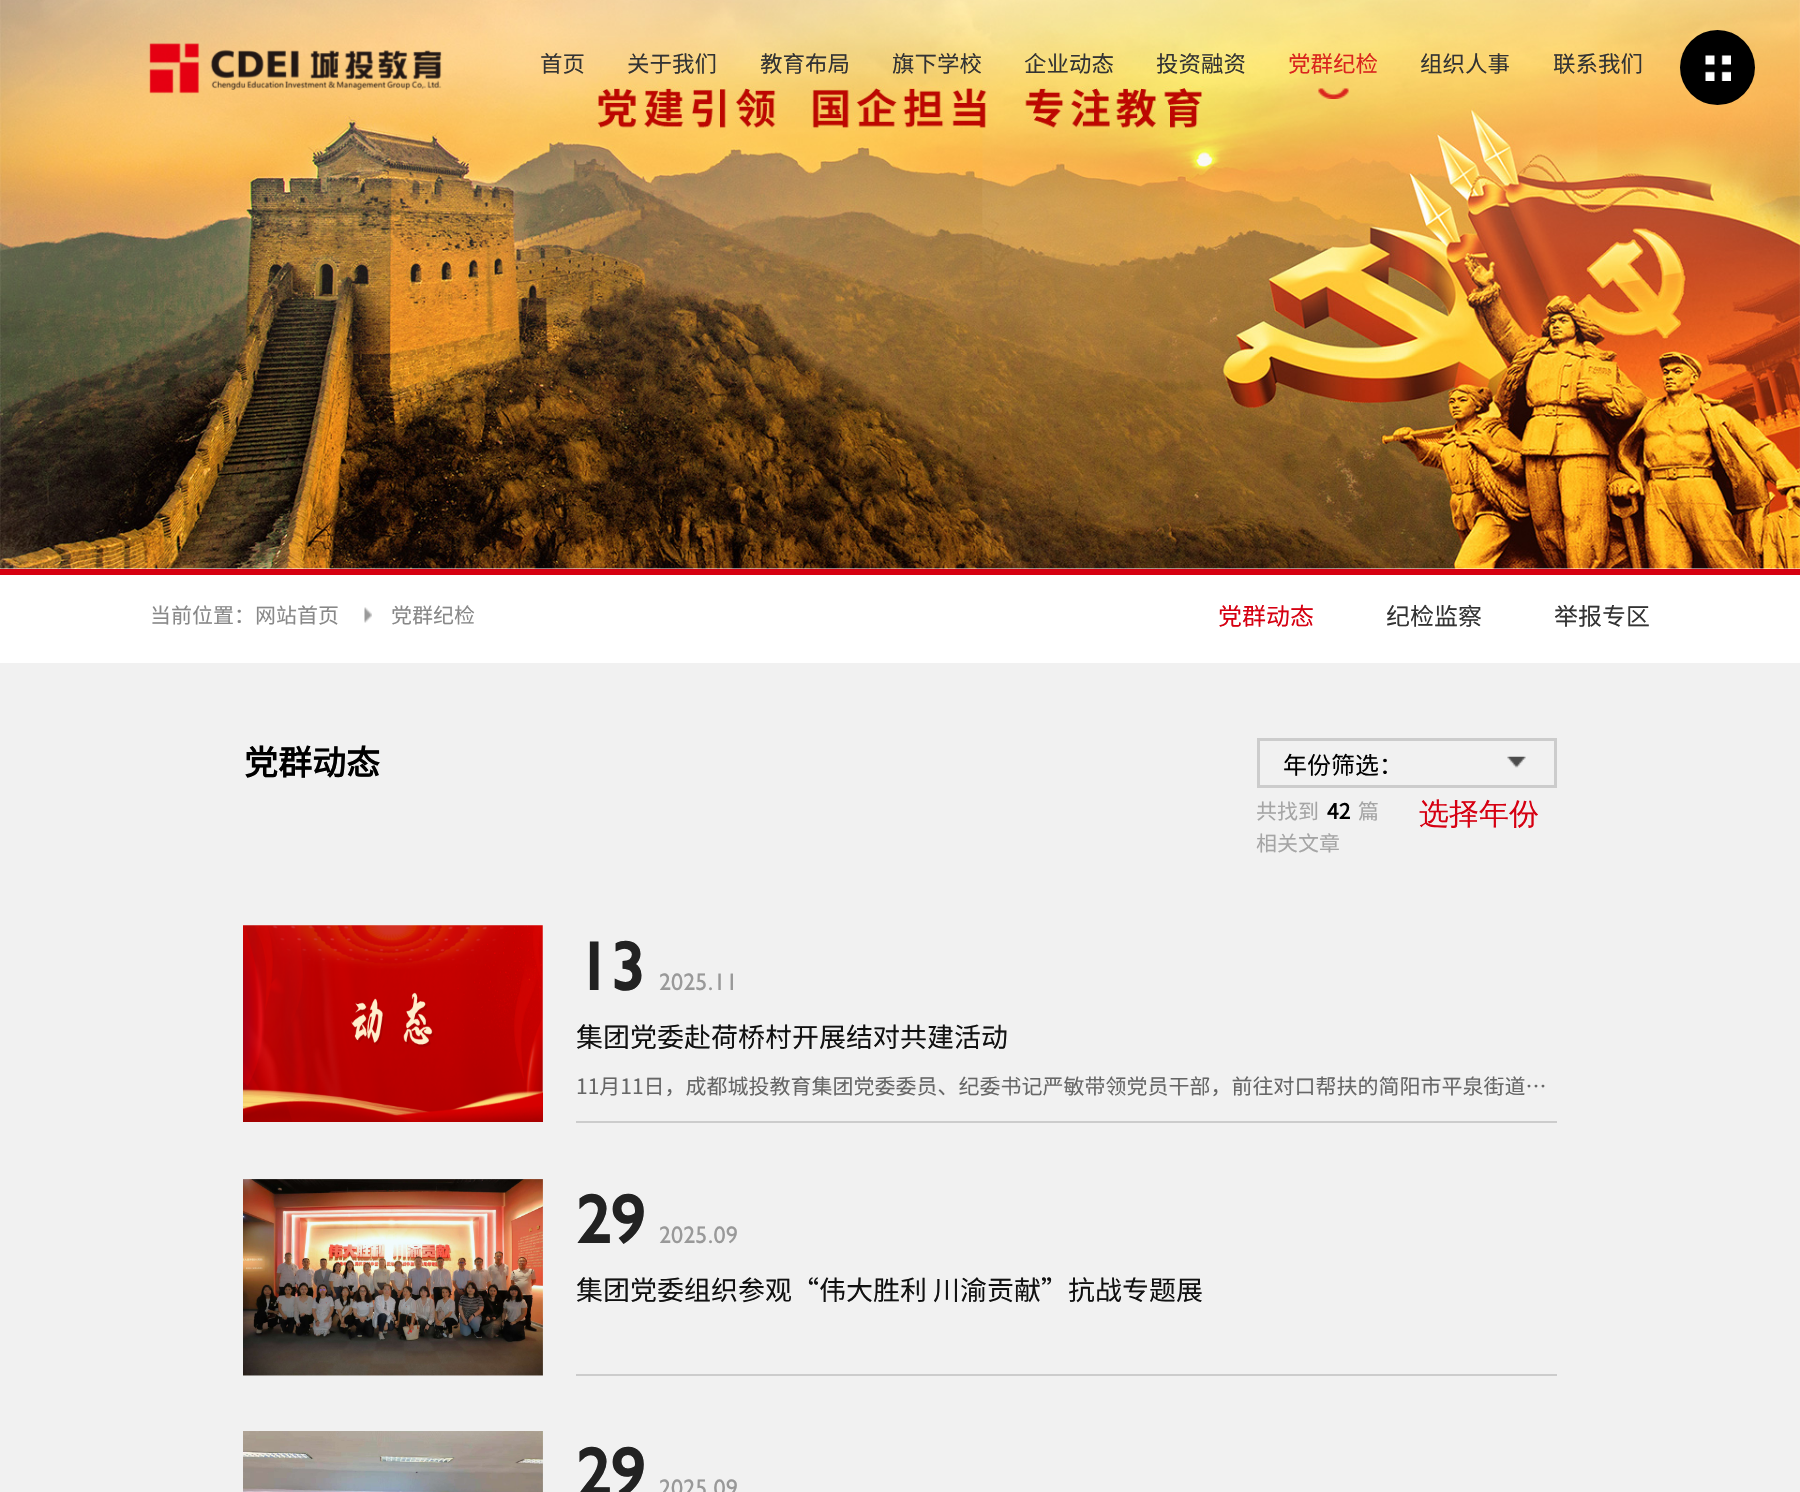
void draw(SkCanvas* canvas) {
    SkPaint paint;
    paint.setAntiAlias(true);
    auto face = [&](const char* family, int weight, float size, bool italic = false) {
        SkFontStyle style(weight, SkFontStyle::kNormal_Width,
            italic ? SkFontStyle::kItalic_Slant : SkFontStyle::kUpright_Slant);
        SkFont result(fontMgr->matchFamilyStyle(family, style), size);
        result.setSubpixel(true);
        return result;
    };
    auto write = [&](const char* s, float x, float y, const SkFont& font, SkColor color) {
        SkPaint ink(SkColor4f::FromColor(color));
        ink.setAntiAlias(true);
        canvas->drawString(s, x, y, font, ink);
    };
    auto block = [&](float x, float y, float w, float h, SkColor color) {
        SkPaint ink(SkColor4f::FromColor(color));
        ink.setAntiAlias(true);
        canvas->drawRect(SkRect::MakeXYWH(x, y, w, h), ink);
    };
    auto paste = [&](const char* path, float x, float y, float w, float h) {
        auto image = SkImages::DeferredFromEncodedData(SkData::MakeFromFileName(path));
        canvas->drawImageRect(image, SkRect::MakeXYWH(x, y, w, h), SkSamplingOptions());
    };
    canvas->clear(SK_ColorWHITE);
    paste("pic1.png", 0, 0, 1800, 569);
    paste("pic2.png", 149, 43, 293, 51);
    auto kFont1 = face("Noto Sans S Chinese", 400, 22.5f);
    write("首页", 540, 72, kFont1, SkColorSetRGB(51, 51, 51));
    write("关于我们", 627, 72, kFont1, SkColorSetRGB(51, 51, 51));
    write("教育布局", 760, 72, kFont1, SkColorSetRGB(51, 51, 51));
    write("旗下学校", 892, 72, kFont1, SkColorSetRGB(51, 51, 51));
    write("企业动态", 1024, 72, kFont1, SkColorSetRGB(51, 51, 51));
    write("投资融资", 1156, 72, kFont1, SkColorSetRGB(51, 51, 51));
    write("党群纪检", 1288, 72, kFont1, SkColorSetRGB(218, 37, 29));
    paste("pic3.png", 1318, 88, 31, 11);
    write("组织人事", 1420, 72, kFont1, SkColorSetRGB(51, 51, 51));
    write("联系我们", 1553, 72, kFont1, SkColorSetRGB(51, 51, 51));
    paint.setColor(SK_ColorBLACK);
    canvas->drawCircle(1717.5f, 67.5f, 37.5f, paint);
    paste("pic4.png", 1705, 55, 26, 26);
    block(0, 569, 1800, 6, SkColorSetRGB(214, 0, 17));
    auto kFont2 = face("Noto Sans S Chinese", 400, 21);
    write("当前位置：网站首页", 150, 623, kFont2, SkColorSetRGB(136, 136, 136));
    paste("pic5.png", 364, 607, 8, 16);
    write("党群纪检", 391, 623, kFont2, SkColorSetRGB(136, 136, 136));
    auto kFont3 = face("Noto Sans S Chinese", 400, 24);
    write("党群动态", 1218, 625, kFont3, SkColorSetRGB(214, 0, 17));
    write("纪检监察", 1386, 625, kFont3, SkColorSetRGB(51, 51, 51));
    write("举报专区", 1554, 625, kFont3, SkColorSetRGB(51, 51, 51));
    block(0, 663, 1800, 829, SkColorSetRGB(241, 241, 241));
    auto kFont4 = face("Noto Sans S Chinese", 700, 34);
    write("党群动态", 244, 775, kFont4, SK_ColorBLACK);
    paint.setStyle(SkPaint::kStroke_Style);
    paint.setStrokeWidth(3);
    paint.setColor(SkColorSetRGB(204, 204, 204));
    canvas->drawRect(SkRect::MakeXYWH(1258.5f, 739.5f, 297, 47), paint);
    write("年份筛选：", 1283, 774, kFont3, SK_ColorBLACK);
    paste("pic6.png", 1507, 756, 19, 12);
    auto kFont5 = face("WenQuanYi Zen Hei", 500, 30);
    write("选择年份", 1419, 824, kFont5, SkColorSetRGB(214, 0, 17));
    write("共找到", 1256, 819, kFont2, SkColorSetRGB(165, 165, 165));
    auto kFont6 = face("Noto Sans S Chinese", 700, 21);
    write("42", 1327, 819, kFont6, SK_ColorBLACK);
    write("篇", 1358, 819, kFont2, SkColorSetRGB(165, 165, 165));
    write("相关文章", 1256, 851, kFont2, SkColorSetRGB(165, 165, 165));
    paste("pic7.png", 243, 925, 300, 197);
    block(576, 1121, 981, 2, SkColorSetRGB(204, 204, 204));
    auto kFont7 = face("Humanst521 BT", 700, 68);
    write("13", 576, 990, kFont7, SkColorSetRGB(34, 34, 34));
    auto kFont8 = face("Humanst521 BT", 400, 24);
    write("2025.11", 659, 990, kFont8, SkColorSetRGB(153, 153, 153));
    auto kFont9 = face("Noto Sans S Chinese", 400, 27);
    write("集团党委赴荷桥村开展结对共建活动", 576, 1047, kFont9, SkColorSetRGB(17, 17, 17));
    write("11月11日，成都城投教育集团党委委员、纪委书记严敏带领党员干部，前往对口帮扶的简阳市平泉街道…", 576, 1094, kFont2, SkColorSetRGB(102, 102, 102));
    paste("pic8.png", 243, 1179, 300, 197);
    block(576, 1374, 981, 2, SkColorSetRGB(204, 204, 204));
    write("29", 576, 1243, kFont7, SkColorSetRGB(34, 34, 34));
    write("2025.09", 659, 1243, kFont8, SkColorSetRGB(153, 153, 153));
    write("集团党委组织参观“伟大胜利 川渝贡献”抗战专题展", 576, 1300, kFont9, SkColorSetRGB(17, 17, 17));
    paste("pic9.png", 243, 1431, 300, 61);
    write("29", 576, 1496, kFont7, SkColorSetRGB(34, 34, 34));
    write("2025.09", 659, 1496, kFont8, SkColorSetRGB(153, 153, 153));
}
